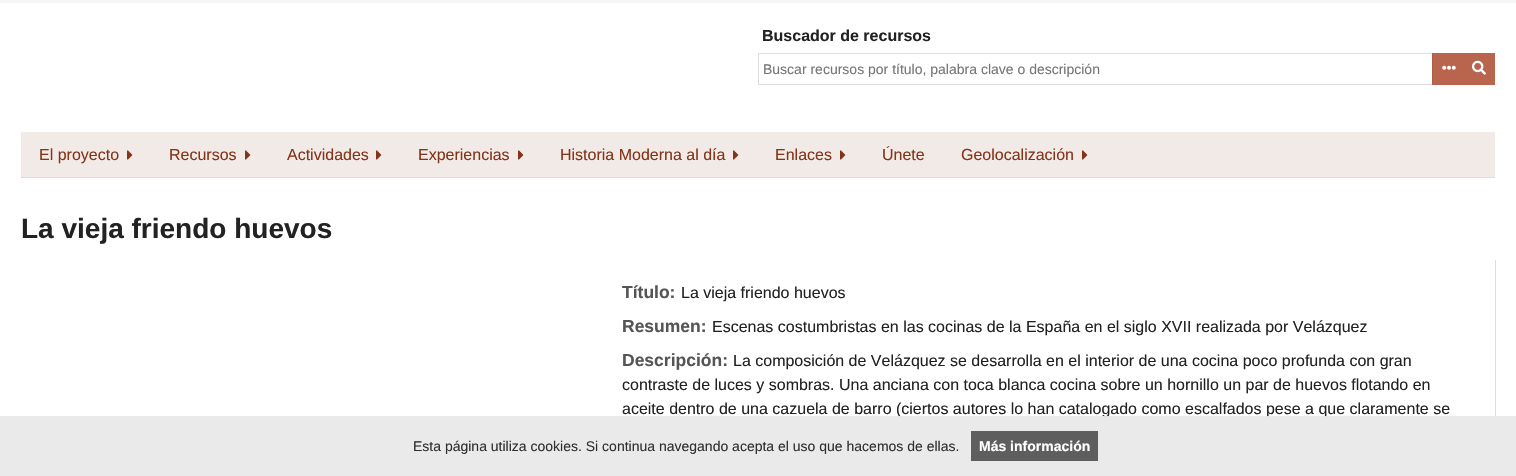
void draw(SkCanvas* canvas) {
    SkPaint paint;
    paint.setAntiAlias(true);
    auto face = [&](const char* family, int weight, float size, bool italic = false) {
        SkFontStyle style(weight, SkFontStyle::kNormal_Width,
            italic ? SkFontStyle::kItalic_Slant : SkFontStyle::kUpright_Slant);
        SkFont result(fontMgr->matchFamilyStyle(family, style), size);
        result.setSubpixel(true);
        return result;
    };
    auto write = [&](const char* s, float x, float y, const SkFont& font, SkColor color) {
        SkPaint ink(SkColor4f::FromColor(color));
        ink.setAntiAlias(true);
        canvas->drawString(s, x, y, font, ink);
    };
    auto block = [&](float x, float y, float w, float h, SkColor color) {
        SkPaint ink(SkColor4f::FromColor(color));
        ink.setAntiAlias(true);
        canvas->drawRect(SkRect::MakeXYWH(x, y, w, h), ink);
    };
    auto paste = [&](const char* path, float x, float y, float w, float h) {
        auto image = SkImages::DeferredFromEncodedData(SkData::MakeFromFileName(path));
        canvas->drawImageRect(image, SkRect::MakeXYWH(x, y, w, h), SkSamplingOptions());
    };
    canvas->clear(SkColorSetRGB(246, 246, 246));
    block(0, 3, 1516, 473, SK_ColorWHITE);
    auto kFont1 = face("Liberation Sans", 700, 16);
    write("Buscador de recursos", 762, 41, kFont1, SkColorSetRGB(34, 34, 34));
    paint.setStyle(SkPaint::kStroke_Style);
    paint.setStrokeWidth(1);
    paint.setColor(SkColorSetRGB(221, 221, 221));
    canvas->drawRect(SkRect::MakeXYWH(758.5f, 53.5f, 736, 31), paint);
    block(1433, 53, 62, 32, SkColorSetRGB(185, 101, 77));
    block(1432, 53, 1, 32, SkColorSetRGB(170, 93, 71));
    paste("pic1.png", 1442, 65, 14, 5);
    auto kFont2 = face("Liberation Sans", 400, 14);
    write("Buscar recursos por título, palabra clave o descripción", 763, 74, kFont2, SkColorSetRGB(117, 117, 117));
    paste("pic2.png", 1472, 60, 14, 15);
    block(21, 132, 1474, 45, SkColorSetRGB(242, 234, 231));
    auto kFont3 = face("Liberation Sans", 400, 16);
    write("El proyecto", 39, 160, kFont3, SkColorSetRGB(132, 52, 24));
    paste("pic3.png", 127, 150, 6, 10);
    write("Recursos", 169, 160, kFont3, SkColorSetRGB(132, 52, 24));
    paste("pic3.png", 245, 150, 6, 10);
    write("Actividades", 287, 160, kFont3, SkColorSetRGB(132, 52, 24));
    paste("pic3.png", 376, 150, 6, 10);
    write("Experiencias", 418, 160, kFont3, SkColorSetRGB(132, 52, 24));
    paste("pic3.png", 518, 150, 6, 10);
    write("Historia Moderna al día", 560, 160, kFont3, SkColorSetRGB(132, 52, 24));
    paste("pic3.png", 733, 150, 6, 10);
    write("Enlaces", 775, 160, kFont3, SkColorSetRGB(132, 52, 24));
    paste("pic3.png", 840, 150, 6, 10);
    write("Únete", 882, 160, kFont3, SkColorSetRGB(132, 52, 24));
    write("Geolocalización", 961, 160, kFont3, SkColorSetRGB(132, 52, 24));
    paste("pic3.png", 1082, 150, 6, 10);
    block(21, 177, 1474, 1, SkColorSetRGB(221, 221, 221));
    auto kFont4 = face("Liberation Sans", 700, 28);
    write("La vieja friendo huevos", 21, 238, kFont4, SkColorSetRGB(34, 34, 34));
    auto kFont5 = face("Liberation Sans", 700, 17.5f);
    write("Título:", 622, 298, kFont5, SkColorSetRGB(85, 85, 85));
    write("La vieja friendo huevos", 681, 298, kFont3, SkColorSetRGB(34, 34, 34));
    write("Resumen:", 622, 332, kFont5, SkColorSetRGB(85, 85, 85));
    write("Escenas costumbristas en las cocinas de la España en el siglo XVII realizada por Velázquez", 712, 332, kFont3, SkColorSetRGB(34, 34, 34));
    write("Descripción:", 622, 366, kFont5, SkColorSetRGB(85, 85, 85));
    write("La composición de Velázquez se desarrolla en el interior de una cocina poco profunda con gran", 733, 366, kFont3, SkColorSetRGB(34, 34, 34));
    write("contraste de luces y sombras. Una anciana con toca blanca cocina sobre un hornillo un par de huevos flotando en", 622, 390, kFont3, SkColorSetRGB(34, 34, 34));
    write("aceite dentro de una cazuela de barro (ciertos autores lo han catalogado como escalfados pese a que claramente se", 622, 414, kFont3, SkColorSetRGB(34, 34, 34));
    block(1495, 260, 1, 216, SkColorSetRGB(221, 221, 221));
    block(0, 416, 1516, 60, SkColorSetARGB(242, 233, 233, 233));
    write("Esta página utiliza cookies. Si continua navegando acepta el uso que hacemos de ellas.", 413, 451, kFont2, SkColorSetRGB(47, 47, 47));
    block(971, 431, 127, 30, SkColorSetARGB(153, 0, 0, 0));
    auto kFont6 = face("Liberation Sans", 700, 14);
    write("Más información", 979, 451, kFont6, SK_ColorWHITE);
}
